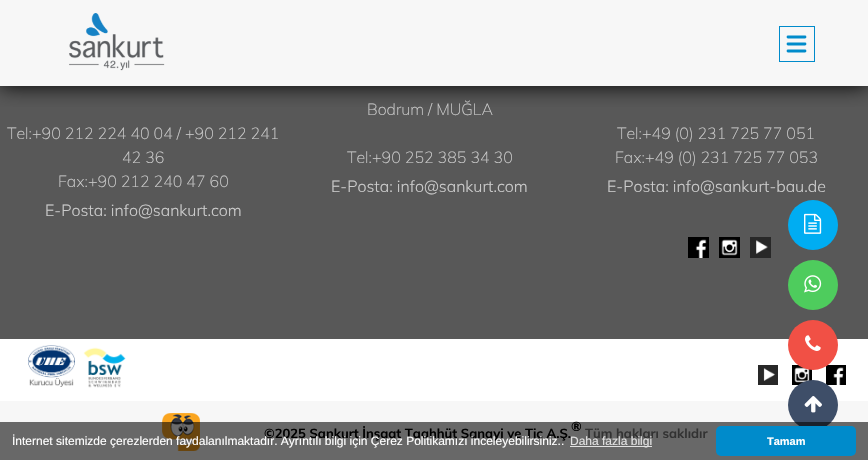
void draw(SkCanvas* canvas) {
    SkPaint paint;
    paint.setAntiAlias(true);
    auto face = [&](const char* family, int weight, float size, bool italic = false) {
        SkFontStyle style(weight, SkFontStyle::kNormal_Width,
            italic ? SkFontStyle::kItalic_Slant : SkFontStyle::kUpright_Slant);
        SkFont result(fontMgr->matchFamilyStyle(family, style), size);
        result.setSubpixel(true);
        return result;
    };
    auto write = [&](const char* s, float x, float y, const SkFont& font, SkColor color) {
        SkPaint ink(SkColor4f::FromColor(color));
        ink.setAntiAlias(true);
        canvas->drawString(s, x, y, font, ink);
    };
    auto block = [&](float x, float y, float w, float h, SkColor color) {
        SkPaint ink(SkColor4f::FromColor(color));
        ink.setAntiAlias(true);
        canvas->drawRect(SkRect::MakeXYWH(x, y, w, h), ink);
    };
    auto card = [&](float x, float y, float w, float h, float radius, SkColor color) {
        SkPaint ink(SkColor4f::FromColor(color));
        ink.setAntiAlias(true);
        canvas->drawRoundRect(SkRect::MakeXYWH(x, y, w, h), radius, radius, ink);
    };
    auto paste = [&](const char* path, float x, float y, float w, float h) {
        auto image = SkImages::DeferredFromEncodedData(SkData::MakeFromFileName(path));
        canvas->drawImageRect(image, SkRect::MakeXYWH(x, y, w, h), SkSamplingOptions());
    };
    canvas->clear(SK_ColorWHITE);
    block(0, 0, 868, 339, SkColorSetRGB(88, 88, 88));
    canvas->save();
    canvas->clipRect(SkRect::MakeXYWH(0, 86, 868, 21));
    paint.setColor(SK_ColorBLACK);
    paint.setMaskFilter(SkMaskFilter::MakeBlur(kNormal_SkBlurStyle, 10));
    canvas->drawRect(SkRect::MakeXYWH(0, 0, 868, 86), paint);
    paint.setMaskFilter(nullptr);
    canvas->restore();
    block(0, 0, 868, 86, SkColorSetARGB(242, 255, 255, 255));
    paste("pic1.png", 69, 13, 96, 58);
    paint.setStyle(SkPaint::kStroke_Style);
    paint.setStrokeWidth(1);
    paint.setColor(SkColorSetRGB(0, 139, 203));
    canvas->drawRect(SkRect::MakeXYWH(779.5f, 26.5f, 35, 35), paint);
    paint.setStrokeWidth(2.8f);
    paint.setStrokeCap(SkPaint::kRound_Cap);
    paint.setStrokeJoin(SkPaint::kRound_Join);
    canvas->drawPath(SkPathBuilder().moveTo(788, 37).lineTo(805, 37).moveTo(788, 44).lineTo(805, 44).moveTo(805, 51).lineTo(788, 51).detach(), paint);
    auto kFont1 = face("Muli", 200, 16);
    write("Tel:+90 212 224 40 04 / +90 212 241", 7, 139, kFont1, SkColorSetRGB(204, 204, 204));
    write("42 36", 122, 163, kFont1, SkColorSetRGB(204, 204, 204));
    write("Fax:+90 212 240 47 60", 58, 187, kFont1, SkColorSetRGB(204, 204, 204));
    auto kFont2 = face("Muli", 300, 16);
    write("E-Posta: info@sankurt.com", 45, 216, kFont2, SkColorSetRGB(204, 204, 204));
    write("Bodrum / MUĞLA", 367, 115, kFont1, SkColorSetRGB(204, 204, 204));
    write("Tel:+90 252 385 34 30", 347, 163, kFont1, SkColorSetRGB(204, 204, 204));
    write("E-Posta: info@sankurt.com", 331, 192, kFont2, SkColorSetRGB(204, 204, 204));
    write("Tel:+49 (0) 231 725 77 051", 617, 139, kFont1, SkColorSetRGB(204, 204, 204));
    write("Fax:+49 (0) 231 725 77 053", 615, 163, kFont1, SkColorSetRGB(204, 204, 204));
    write("E-Posta: info@sankurt-bau.de", 607, 192, kFont2, SkColorSetRGB(204, 204, 204));
    block(695, 239, 12, 19, SK_ColorWHITE);
    paste("pic2.png", 688, 237, 21, 21);
    block(721, 239, 17, 17, SK_ColorWHITE);
    paste("pic3.png", 719, 237, 21, 21);
    paste("pic4.png", 750, 237, 21, 21);
    paint.setStyle(SkPaint::kFill_Style);
    paint.setColor(SkColorSetRGB(0, 173, 242));
    canvas->drawCircle(813, 225, 25, paint);
    paste("pic5.png", 804, 213, 18, 21);
    paint.setColor(SkColorSetRGB(78, 204, 93));
    canvas->drawCircle(813, 285, 25, paint);
    paste("pic6.png", 804, 275, 18, 18);
    paste("pic12.png", 792, 365, 20, 20);
    paste("pic13.png", 826, 365, 20, 20);
    paint.setColor(SkColorSetRGB(241, 80, 69));
    canvas->drawCircle(813, 345, 25, paint);
    paste("pic7.png", 805, 335, 16, 16);
    block(0, 401, 868, 59, SkColorSetRGB(247, 247, 247));
    paint.setColor(SkColorSetRGB(62, 78, 104));
    canvas->drawCircle(813, 405, 25, paint);
    paste("pic8.png", 804, 396, 18, 17);
    paste("pic9.png", 28, 345, 47, 42);
    paste("pic10.png", 83, 347, 43, 41);
    paste("pic11.png", 758, 365, 20, 20);
    paste("pic14.png", 162, 413, 38, 38);
    auto kFont3 = face("Muli", 700, 13);
    write("©2025 Sankurt İnşaat Taahhüt Sanayi ve Tic A.Ş.", 264, 438, kFont3, SK_ColorBLACK);
    write("®", 571, 431, kFont3, SK_ColorBLACK);
    write("Tüm hakları saklıdır", 585, 438, kFont3, SkColorSetRGB(119, 119, 119));
    block(0, 422, 868, 38, SkColorSetARGB(148, 0, 0, 0));
    auto kFont4 = face("Liberation Sans", 400, 12);
    write("İnternet sitemizde çerezlerden faydalanılmaktadır. Ayrıntılı bilgi için Çerez Politikamızı inceleyebilirsiniz..", 12, 445, kFont4, SK_ColorWHITE);
    block(570, 446, 82, 1, SkColorSetRGB(225, 225, 225));
    write("Daha fazla bilgi", 570, 445, kFont4, SkColorSetRGB(225, 225, 225));
    card(716, 426, 140, 30, 5, SkColorSetRGB(0, 139, 203));
    auto kFont5 = face("Liberation Sans", 700, 11);
    write("Tamam", 767, 445, kFont5, SK_ColorWHITE);
}
